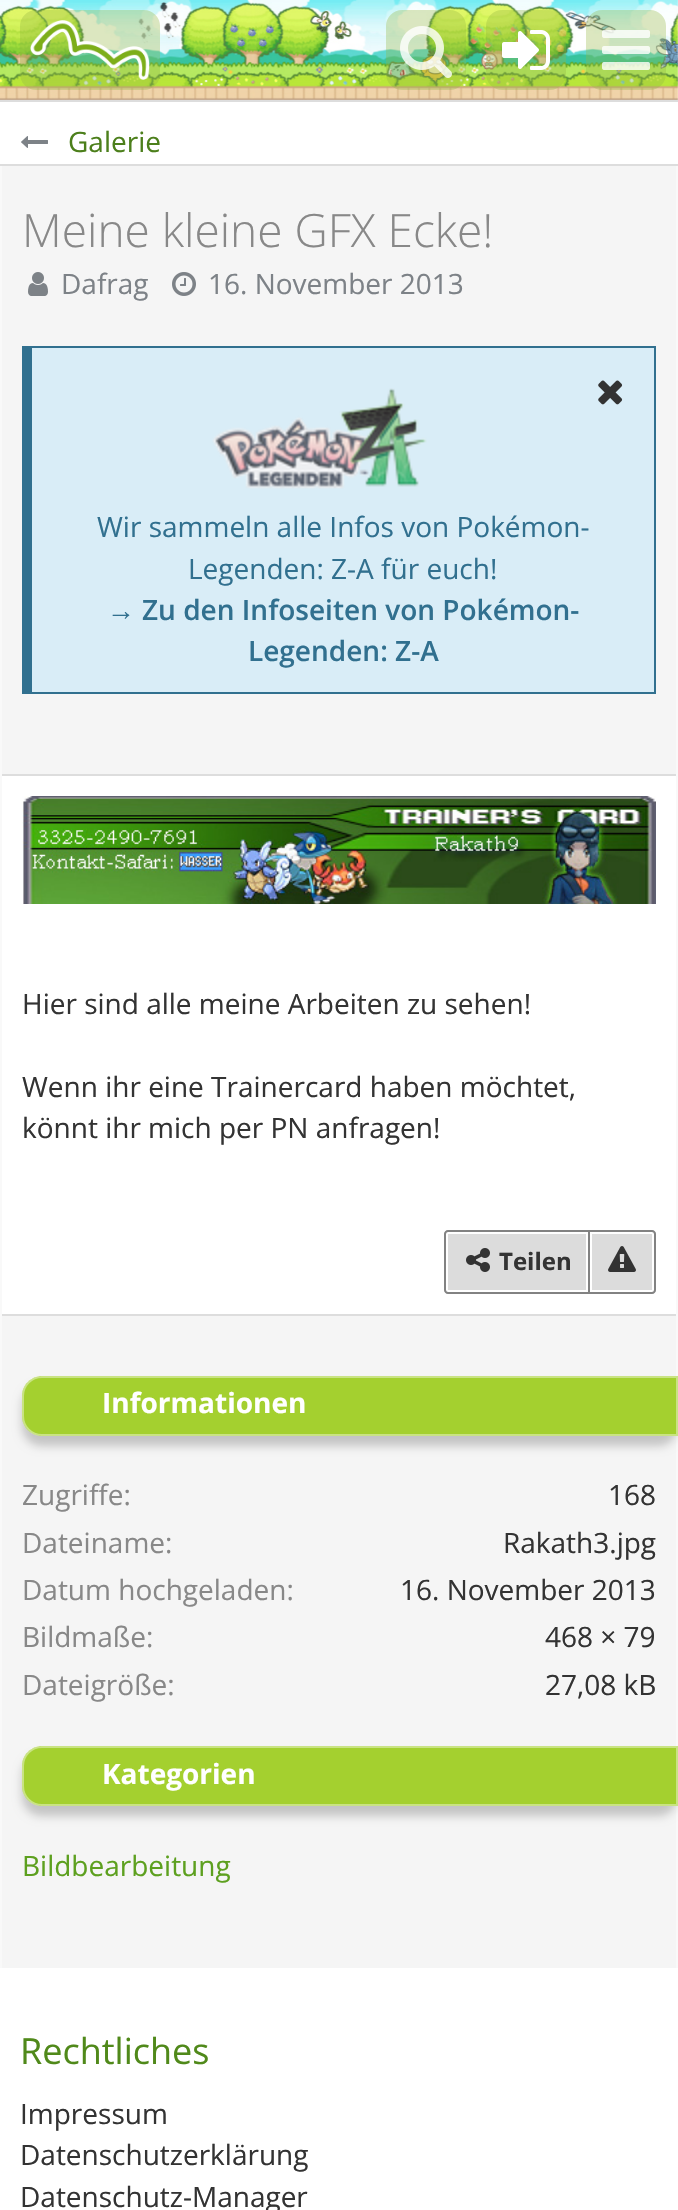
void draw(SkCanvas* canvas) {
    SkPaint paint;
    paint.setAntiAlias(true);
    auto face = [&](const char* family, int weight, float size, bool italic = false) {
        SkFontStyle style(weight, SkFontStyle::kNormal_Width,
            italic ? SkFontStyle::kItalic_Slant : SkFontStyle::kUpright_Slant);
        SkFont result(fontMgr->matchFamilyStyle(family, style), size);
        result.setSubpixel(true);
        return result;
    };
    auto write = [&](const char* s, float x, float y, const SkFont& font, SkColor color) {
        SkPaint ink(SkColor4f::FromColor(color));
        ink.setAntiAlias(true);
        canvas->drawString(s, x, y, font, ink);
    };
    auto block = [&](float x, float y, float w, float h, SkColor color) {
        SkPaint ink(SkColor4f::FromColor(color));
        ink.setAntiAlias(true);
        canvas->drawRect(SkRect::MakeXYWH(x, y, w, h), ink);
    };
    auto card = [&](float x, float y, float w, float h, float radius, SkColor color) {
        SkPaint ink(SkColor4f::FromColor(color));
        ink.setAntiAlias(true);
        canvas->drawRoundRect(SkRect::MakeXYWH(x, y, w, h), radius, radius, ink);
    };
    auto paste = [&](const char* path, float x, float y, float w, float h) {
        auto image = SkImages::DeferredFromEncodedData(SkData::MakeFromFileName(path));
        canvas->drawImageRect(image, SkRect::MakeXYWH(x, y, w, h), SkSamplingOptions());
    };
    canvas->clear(SK_ColorWHITE);
    paste("pic1.png", 0, 0, 678, 100);
    card(20, 10, 140, 80, 16, SkColorSetARGB(84, 149, 183, 64));
    paste("pic2.png", 30, 20, 120, 60);
    card(386, 10, 80, 80, 16, SkColorSetARGB(84, 149, 183, 64));
    paste("pic3.png", 400, 26, 52, 52);
    card(486, 10, 80, 80, 16, SkColorSetARGB(84, 149, 183, 64));
    paste("pic4.png", 502, 30, 48, 40);
    card(586, 10, 80, 80, 16, SkColorSetARGB(84, 149, 183, 64));
    paste("pic5.png", 602, 30, 48, 40);
    block(0, 100, 678, 2, SkColorSetRGB(221, 221, 221));
    block(0, 164, 678, 2, SkColorSetRGB(221, 221, 221));
    paste("pic6.png", 21, 136, 27, 12);
    auto kFont1 = face("Open Sans", 400, 28);
    write("Galerie", 68, 152, kFont1, SkColorSetRGB(76, 127, 27));
    block(2, 166, 674, 1802, SkColorSetRGB(245, 245, 245));
    block(676, 166, 2, 1802, SkColorSetRGB(249, 249, 249));
    block(0, 166, 2, 1802, SkColorSetRGB(249, 249, 249));
    auto kFont2 = face("Open Sans", 300, 46);
    write("Meine kleine GFX Ecke!", 22, 247, kFont2, SkColorSetRGB(136, 136, 136));
    paste("pic7.png", 28, 272, 20, 24);
    write("Dafrag", 61, 294, kFont1, SkColorSetRGB(125, 130, 135));
    paste("pic8.png", 172, 272, 24, 24);
    write("16. November 2013", 208, 294, kFont1, SkColorSetRGB(125, 130, 135));
    block(32, 348, 622, 344, SkColorSetRGB(217, 237, 247));
    block(32, 346, 624, 2, SkColorSetRGB(49, 112, 143));
    block(654, 346, 2, 348, SkColorSetRGB(49, 112, 143));
    block(32, 692, 624, 2, SkColorSetRGB(49, 112, 143));
    block(22, 346, 10, 348, SkColorSetRGB(49, 112, 143));
    paste("pic9.png", 598, 380, 25, 25);
    paste("pic10.png", 212, 388, 215, 101);
    write("Wir sammeln alle Infos von Pokémon-", 97, 537, kFont1, SkColorSetRGB(49, 112, 143));
    write("Legenden: Z-A für euch!", 188, 579, kFont1, SkColorSetRGB(49, 112, 143));
    auto kFont3 = face("Liberation Sans", 700, 28);
    write("→", 107, 620, kFont3, SkColorSetRGB(49, 112, 143));
    auto kFont4 = face("Open Sans", 600, 28);
    write("Zu den Infoseiten von Pokémon-", 142, 620, kFont4, SkColorSetRGB(49, 112, 143));
    write("Legenden: Z-A", 248, 661, kFont4, SkColorSetRGB(49, 112, 143));
    block(2, 776, 674, 538, SK_ColorWHITE);
    block(2, 774, 674, 2, SkColorSetRGB(221, 221, 221));
    block(2, 1314, 674, 2, SkColorSetRGB(221, 221, 221));
    paste("pic11.png", 22, 796, 634, 108);
    write("Hier sind alle meine Arbeiten zu sehen!", 22, 1014, kFont1, SkColorSetRGB(51, 51, 51));
    write("Wenn ihr eine Trainercard haben möchtet,", 22, 1097, kFont1, SkColorSetRGB(51, 51, 51));
    write("könnt ihr mich per PN anfragen!", 22, 1138, kFont1, SkColorSetRGB(51, 51, 51));
    paint.setColor(SkColorSetRGB(220, 220, 220));
    canvas->drawPath(SkPathBuilder().moveTo(448, 1230).lineTo(590, 1230).lineTo(590, 1294).lineTo(448, 1294).cubicTo(446, 1294, 444, 1292, 444, 1290).lineTo(444, 1234).cubicTo(444, 1232, 446, 1230, 448, 1230).close().detach(), paint);
    paint.setStyle(SkPaint::kStroke_Style);
    paint.setStrokeWidth(2);
    paint.setColor(SK_ColorWHITE);
    canvas->drawPath(SkPathBuilder().moveTo(448, 1233).lineTo(587, 1233).lineTo(587, 1291).lineTo(448, 1291).cubicTo(447.5f, 1291, 447, 1290.5f, 447, 1290).lineTo(447, 1234).cubicTo(447, 1233.5f, 447.5f, 1233, 448, 1233).close().detach(), paint);
    paint.setColor(SkColorSetRGB(130, 130, 130));
    canvas->drawPath(SkPathBuilder().moveTo(448, 1231).lineTo(589, 1231).lineTo(589, 1293).lineTo(448, 1293).cubicTo(446.5f, 1293, 445, 1291.5f, 445, 1290).lineTo(445, 1234).cubicTo(445, 1232.5f, 446.5f, 1231, 448, 1231).close().detach(), paint);
    paste("pic12.png", 466, 1248, 24, 24);
    auto kFont5 = face("Open Sans", 700, 24);
    write("Teilen", 499, 1270, kFont5, SkColorSetRGB(51, 51, 51));
    paint.setStyle(SkPaint::kFill_Style);
    paint.setColor(SkColorSetRGB(220, 220, 220));
    canvas->drawPath(SkPathBuilder().moveTo(588, 1230).lineTo(652, 1230).cubicTo(654, 1230, 656, 1232, 656, 1234).lineTo(656, 1290).cubicTo(656, 1292, 654, 1294, 652, 1294).lineTo(588, 1294).close().detach(), paint);
    paint.setStyle(SkPaint::kStroke_Style);
    paint.setColor(SK_ColorWHITE);
    canvas->drawPath(SkPathBuilder().moveTo(591, 1233).lineTo(652, 1233).cubicTo(652.5f, 1233, 653, 1233.5f, 653, 1234).lineTo(653, 1290).cubicTo(653, 1290.5f, 652.5f, 1291, 652, 1291).lineTo(591, 1291).close().detach(), paint);
    paint.setColor(SkColorSetRGB(130, 130, 130));
    canvas->drawPath(SkPathBuilder().moveTo(589, 1231).lineTo(652, 1231).cubicTo(653.5f, 1231, 655, 1232.5f, 655, 1234).lineTo(655, 1290).cubicTo(655, 1291.5f, 653.5f, 1293, 652, 1293).lineTo(589, 1293).close().detach(), paint);
    paste("pic13.png", 608, 1246, 28, 26);
    paint.setStyle(SkPaint::kFill_Style);
    paint.setColor(SkColorSetARGB(51, 0, 0, 0));
    paint.setMaskFilter(SkMaskFilter::MakeBlur(kNormal_SkBlurStyle, 5));
    canvas->drawRoundRect(SkRect::MakeXYWH(22, 1386, 656, 60), 20, 20, paint);
    paint.setMaskFilter(nullptr);
    paint.setColor(SkColorSetRGB(164, 208, 47));
    canvas->drawPath(SkPathBuilder().moveTo(42, 1376).lineTo(678, 1376).lineTo(678, 1436).lineTo(42, 1436).cubicTo(31, 1436, 22, 1427, 22, 1416).lineTo(22, 1396).cubicTo(22, 1385, 31, 1376, 42, 1376).close().detach(), paint);
    paint.setStyle(SkPaint::kStroke_Style);
    paint.setColor(SkColorSetARGB(102, 255, 255, 255));
    canvas->drawPath(SkPathBuilder().moveTo(42, 1377).lineTo(677, 1377).lineTo(677, 1435).lineTo(42, 1435).cubicTo(31.5f, 1435, 23, 1426.5f, 23, 1416).lineTo(23, 1396).cubicTo(23, 1385.5f, 31.5f, 1377, 42, 1377).close().detach(), paint);
    auto kFont6 = face("Open Sans", 700, 28);
    write("Informationen", 102, 1413, kFont6, SK_ColorWHITE);
    write("Zugriffe:", 22, 1505, kFont1, SkColorSetRGB(136, 136, 136));
    write("168", 608, 1505, kFont1, SkColorSetRGB(51, 51, 51));
    write("Dateiname:", 22, 1553, kFont1, SkColorSetRGB(136, 136, 136));
    write("Rakath3.jpg", 503, 1553, kFont1, SkColorSetRGB(51, 51, 51));
    write("Datum hochgeladen:", 22, 1600, kFont1, SkColorSetRGB(136, 136, 136));
    write("16. November 2013", 400, 1600, kFont1, SkColorSetRGB(51, 51, 51));
    write("Bildmaße:", 22, 1647, kFont1, SkColorSetRGB(136, 136, 136));
    write("468 × 79", 545, 1647, kFont1, SkColorSetRGB(51, 51, 51));
    write("Dateigröße:", 22, 1695, kFont1, SkColorSetRGB(136, 136, 136));
    write("27,08 kB", 545, 1695, kFont1, SkColorSetRGB(51, 51, 51));
    paint.setStyle(SkPaint::kFill_Style);
    paint.setColor(SkColorSetARGB(51, 0, 0, 0));
    paint.setMaskFilter(SkMaskFilter::MakeBlur(kNormal_SkBlurStyle, 5));
    canvas->drawRoundRect(SkRect::MakeXYWH(22, 1756, 656, 60), 20, 20, paint);
    paint.setMaskFilter(nullptr);
    paint.setColor(SkColorSetRGB(164, 208, 47));
    canvas->drawPath(SkPathBuilder().moveTo(42, 1746).lineTo(678, 1746).lineTo(678, 1806).lineTo(42, 1806).cubicTo(31, 1806, 22, 1797, 22, 1786).lineTo(22, 1766).cubicTo(22, 1755, 31, 1746, 42, 1746).close().detach(), paint);
    paint.setStyle(SkPaint::kStroke_Style);
    paint.setColor(SkColorSetARGB(102, 255, 255, 255));
    canvas->drawPath(SkPathBuilder().moveTo(42, 1747).lineTo(677, 1747).lineTo(677, 1805).lineTo(42, 1805).cubicTo(31.5f, 1805, 23, 1796.5f, 23, 1786).lineTo(23, 1766).cubicTo(23, 1755.5f, 31.5f, 1747, 42, 1747).close().detach(), paint);
    write("Kategorien", 102, 1784, kFont6, SK_ColorWHITE);
    write("Bildbearbeitung", 22, 1876, kFont1, SkColorSetRGB(93, 160, 31));
    auto kFont7 = face("Open Sans", 400, 36);
    write("Rechtliches", 20, 2064, kFont7, SkColorSetRGB(80, 137, 26));
    write("Impressum", 20, 2124, kFont1, SkColorSetRGB(51, 51, 51));
    write("Datenschutzerklärung", 20, 2165, kFont1, SkColorSetRGB(51, 51, 51));
    write("Datenschutz-Manager", 20, 2207, kFont1, SkColorSetRGB(51, 51, 51));
}
